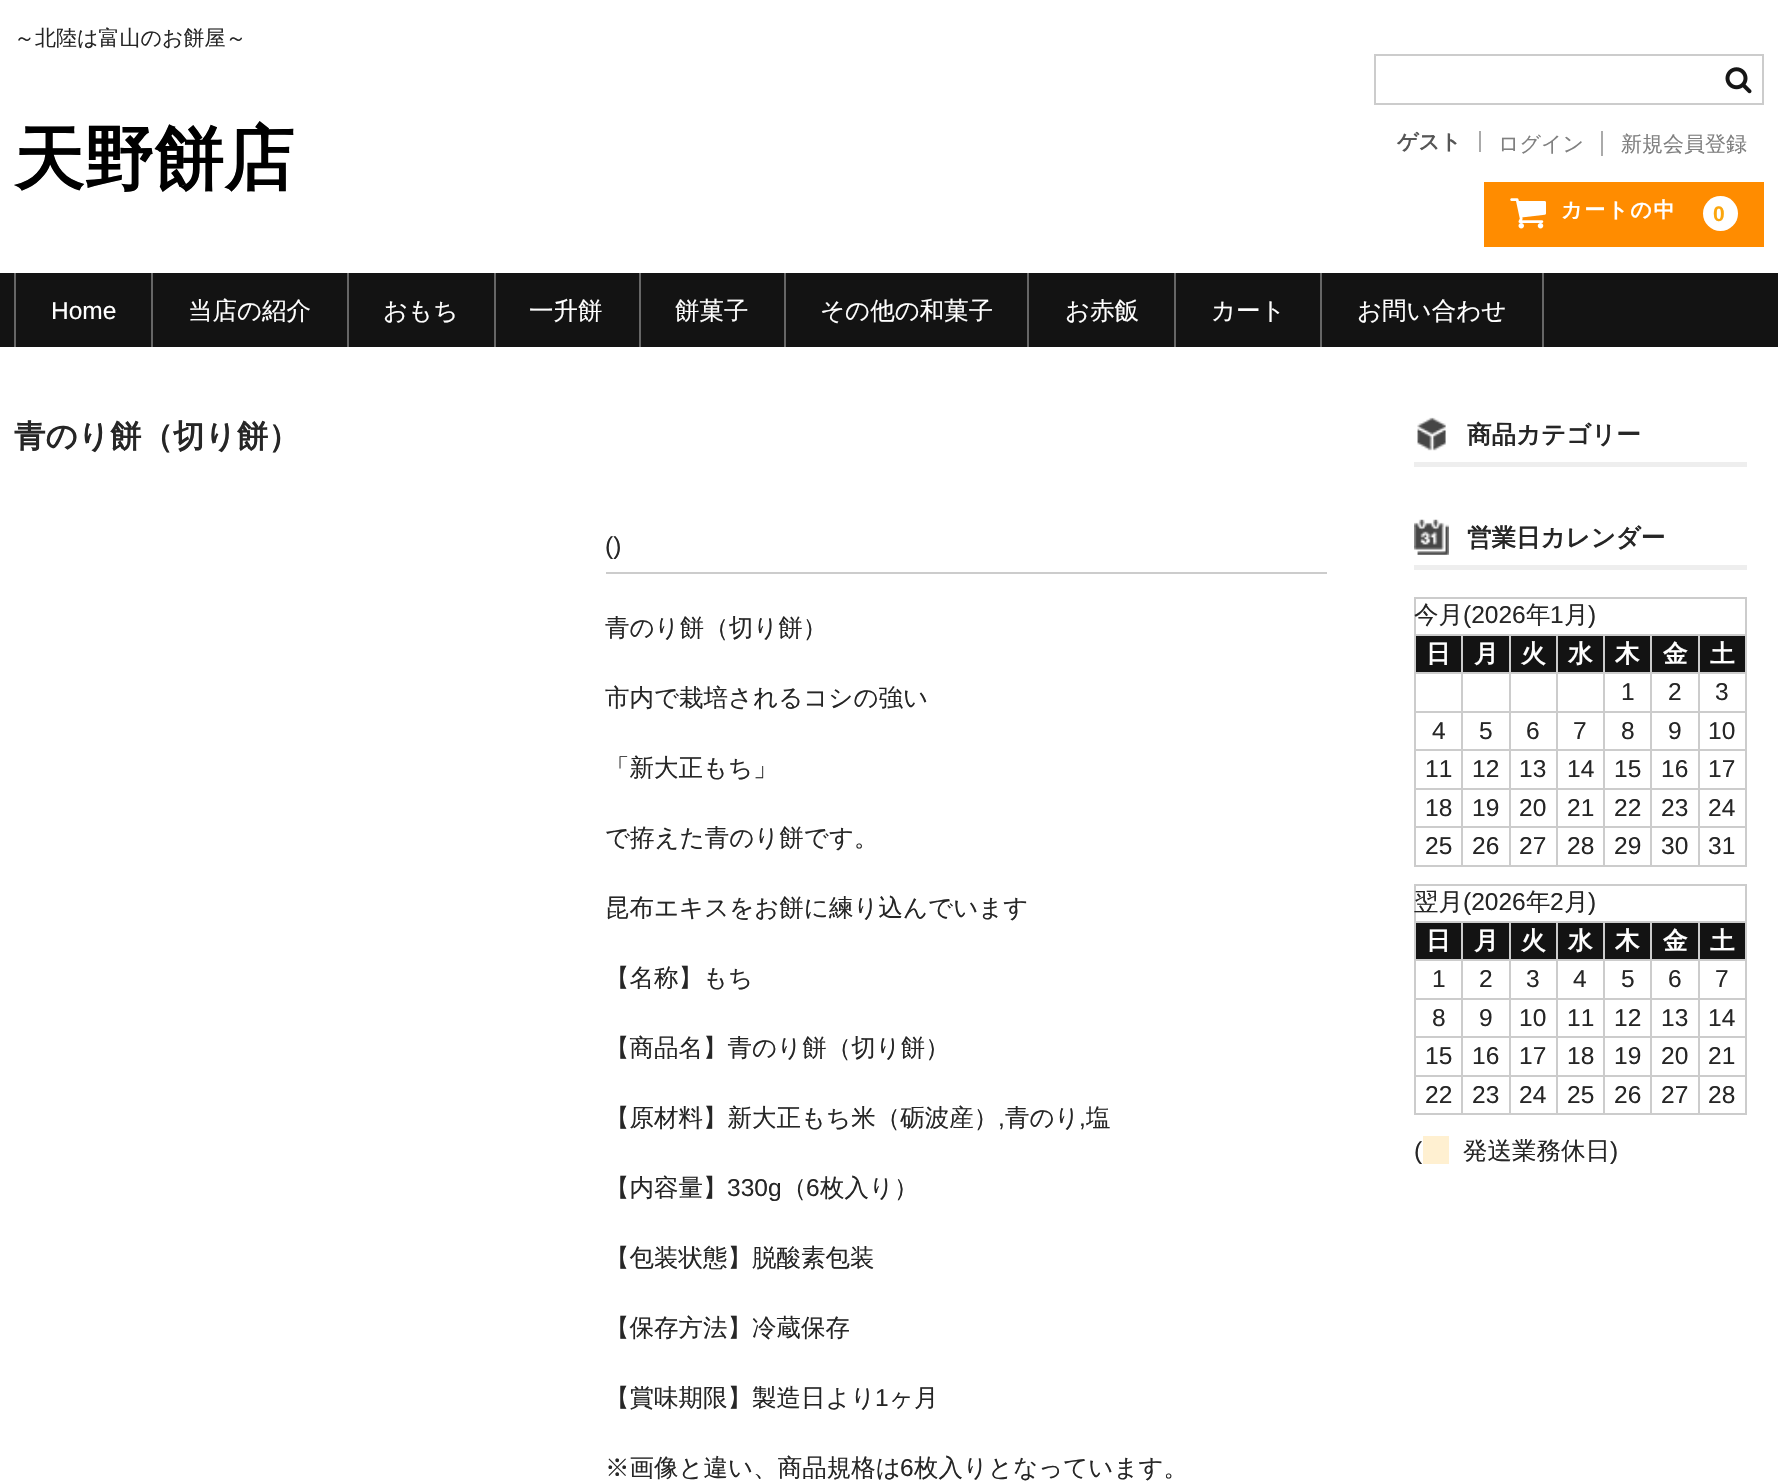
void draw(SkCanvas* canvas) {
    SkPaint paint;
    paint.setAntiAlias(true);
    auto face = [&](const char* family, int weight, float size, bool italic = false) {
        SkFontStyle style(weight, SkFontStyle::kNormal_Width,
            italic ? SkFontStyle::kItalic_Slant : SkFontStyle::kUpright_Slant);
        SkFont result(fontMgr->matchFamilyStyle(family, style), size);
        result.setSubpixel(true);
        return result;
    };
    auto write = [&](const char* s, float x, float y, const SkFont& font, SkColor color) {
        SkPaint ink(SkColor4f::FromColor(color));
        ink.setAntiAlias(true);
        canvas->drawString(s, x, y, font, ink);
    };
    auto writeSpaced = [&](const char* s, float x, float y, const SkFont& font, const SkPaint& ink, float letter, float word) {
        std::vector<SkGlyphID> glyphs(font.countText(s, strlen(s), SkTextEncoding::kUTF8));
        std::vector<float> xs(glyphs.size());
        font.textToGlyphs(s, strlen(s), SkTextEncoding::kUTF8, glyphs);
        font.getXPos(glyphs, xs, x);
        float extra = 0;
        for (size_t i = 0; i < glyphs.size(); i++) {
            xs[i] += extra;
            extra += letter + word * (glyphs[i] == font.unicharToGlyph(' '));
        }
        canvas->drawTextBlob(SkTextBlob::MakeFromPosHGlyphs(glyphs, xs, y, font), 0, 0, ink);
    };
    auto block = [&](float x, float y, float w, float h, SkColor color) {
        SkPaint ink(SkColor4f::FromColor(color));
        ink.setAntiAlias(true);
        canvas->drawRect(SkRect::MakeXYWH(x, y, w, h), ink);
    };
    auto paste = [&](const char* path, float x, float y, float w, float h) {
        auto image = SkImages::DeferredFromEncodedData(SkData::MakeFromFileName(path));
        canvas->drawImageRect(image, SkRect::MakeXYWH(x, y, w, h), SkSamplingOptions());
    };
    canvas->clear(SK_ColorWHITE);
    auto kFont1 = face("WenQuanYi Zen Hei", 500, 21);
    write("～北陸は富山のお餅屋～", 14, 45, kFont1, SkColorSetRGB(38, 38, 38));
    auto kFont2 = face("WenQuanYi Zen Hei", 700, 70);
    write("天野餅店", 14, 183, kFont2, SK_ColorBLACK);
    paint.setStyle(SkPaint::kStroke_Style);
    paint.setStrokeWidth(2);
    paint.setColor(SkColorSetRGB(204, 204, 204));
    canvas->drawRect(SkRect::MakeXYWH(1375, 55, 388, 49), paint);
    paste("pic1.png", 1725, 67, 27, 27);
    block(1479, 131, 2, 21, SkColorSetRGB(170, 170, 170));
    auto kFont3 = face("WenQuanYi Zen Hei", 700, 21);
    write("ゲスト", 1397, 149, kFont3, SkColorSetRGB(86, 86, 86));
    block(1601, 131, 2, 25, SkColorSetRGB(170, 170, 170));
    write("ログイン", 1498, 151, kFont1, SkColorSetRGB(128, 128, 128));
    write("新規会員登録", 1621, 151, kFont1, SkColorSetRGB(128, 128, 128));
    block(1484, 182, 280, 65, SkColorSetRGB(255, 140, 0));
    paste("pic2.png", 1510, 198, 36, 31);
    paint.setStyle(SkPaint::kFill_Style);
    paint.setColor(SK_ColorWHITE);
    writeSpaced("カートの中", 1561, 217, kFont3, paint, 1.75f, 0);
    canvas->drawCircle(1720.5f, 213.5f, 17.5f, paint);
    auto kFont4 = face("Liberation Sans", 700, 21);
    paint.setColor(SkColorSetRGB(251, 166, 13));
    writeSpaced("0", 1713, 221, kFont4, paint, 1.75f, 0);
    block(0, 273, 1778, 74, SkColorSetRGB(19, 19, 19));
    block(151, 273, 2, 74, SkColorSetRGB(102, 102, 102));
    block(14, 273, 2, 74, SkColorSetRGB(102, 102, 102));
    auto kFont5 = face("Liberation Sans", 400, 24.5f);
    write("Home", 51, 319, kFont5, SK_ColorWHITE);
    block(347, 273, 2, 74, SkColorSetRGB(102, 102, 102));
    auto kFont6 = face("WenQuanYi Zen Hei", 500, 24.5f);
    write("当店の紹介", 188, 319, kFont6, SK_ColorWHITE);
    block(494, 273, 2, 74, SkColorSetRGB(102, 102, 102));
    write("おもち", 383, 319, kFont6, SK_ColorWHITE);
    block(639, 273, 2, 74, SkColorSetRGB(102, 102, 102));
    write("一升餅", 529, 319, kFont6, SK_ColorWHITE);
    block(784, 273, 2, 74, SkColorSetRGB(102, 102, 102));
    write("餅菓子", 675, 319, kFont6, SK_ColorWHITE);
    block(1027, 273, 2, 74, SkColorSetRGB(102, 102, 102));
    write("その他の和菓子", 820, 319, kFont6, SK_ColorWHITE);
    block(1174, 273, 2, 74, SkColorSetRGB(102, 102, 102));
    write("お赤飯", 1065, 319, kFont6, SK_ColorWHITE);
    block(1320, 273, 2, 74, SkColorSetRGB(102, 102, 102));
    write("カート", 1211, 319, kFont6, SK_ColorWHITE);
    block(1542, 273, 2, 74, SkColorSetRGB(102, 102, 102));
    write("お問い合わせ", 1357, 319, kFont6, SK_ColorWHITE);
    auto kFont7 = face("WenQuanYi Zen Hei", 700, 31.5f);
    write("青のり餅（切り餅）", 14, 447, kFont7, SkColorSetRGB(38, 38, 38));
    block(606, 572, 721, 2, SkColorSetRGB(204, 204, 204));
    write("()", 605, 554, kFont5, SkColorSetRGB(38, 38, 38));
    write("青のり餅（切り餅）", 605, 636, kFont6, SkColorSetRGB(38, 38, 38));
    write("市内で栽培されるコシの強い", 605, 706, kFont6, SkColorSetRGB(38, 38, 38));
    write("「新大正もち」", 605, 776, kFont6, SkColorSetRGB(38, 38, 38));
    write("で拵えた青のり餅です。", 605, 846, kFont6, SkColorSetRGB(38, 38, 38));
    write("昆布エキスをお餅に練り込んでいます", 605, 916, kFont6, SkColorSetRGB(38, 38, 38));
    write("【名称】もち", 605, 986, kFont6, SkColorSetRGB(38, 38, 38));
    write("【商品名】青のり餅（切り餅）", 605, 1056, kFont6, SkColorSetRGB(38, 38, 38));
    write("【原材料】新大正もち米（砺波産）", 605, 1126, kFont6, SkColorSetRGB(38, 38, 38));
    write(",", 998, 1126, kFont5, SkColorSetRGB(38, 38, 38));
    write("青のり", 1005, 1126, kFont6, SkColorSetRGB(38, 38, 38));
    write(",", 1079, 1126, kFont5, SkColorSetRGB(38, 38, 38));
    write("塩", 1086, 1126, kFont6, SkColorSetRGB(38, 38, 38));
    write("【内容量】", 605, 1196, kFont6, SkColorSetRGB(38, 38, 38));
    write("330g", 727, 1196, kFont5, SkColorSetRGB(38, 38, 38));
    write("（", 782, 1196, kFont6, SkColorSetRGB(38, 38, 38));
    write("6", 806, 1196, kFont5, SkColorSetRGB(38, 38, 38));
    write("枚入り）", 820, 1196, kFont6, SkColorSetRGB(38, 38, 38));
    write("【包装状態】脱酸素包装", 605, 1266, kFont6, SkColorSetRGB(38, 38, 38));
    write("【保存方法】冷蔵保存", 605, 1336, kFont6, SkColorSetRGB(38, 38, 38));
    write("【賞味期限】製造日より", 605, 1406, kFont6, SkColorSetRGB(38, 38, 38));
    write("1", 875, 1406, kFont5, SkColorSetRGB(38, 38, 38));
    write("ヶ月", 889, 1406, kFont6, SkColorSetRGB(38, 38, 38));
    write("※画像と違い、商品規格は", 605, 1476, kFont6, SkColorSetRGB(38, 38, 38));
    write("6", 900, 1476, kFont5, SkColorSetRGB(38, 38, 38));
    write("枚入りとなっています。", 914, 1476, kFont6, SkColorSetRGB(38, 38, 38));
    block(1414, 462, 333, 5, SkColorSetRGB(238, 238, 238));
    paste("pic3.png", 1417, 417, 29, 34);
    auto kFont8 = face("WenQuanYi Zen Hei", 700, 24.5f);
    write("商品カテゴリー", 1467, 443, kFont8, SkColorSetRGB(38, 38, 38));
    block(1414, 565, 333, 5, SkColorSetRGB(238, 238, 238));
    paste("pic4.png", 1414, 519, 35, 36);
    write("営業日カレンダー", 1467, 546, kFont8, SkColorSetRGB(38, 38, 38));
    block(1414, 597, 333, 2, SkColorSetRGB(204, 204, 204));
    block(1745, 597, 2, 269, SkColorSetRGB(204, 204, 204));
    block(1414, 865, 333, 2, SkColorSetRGB(204, 204, 204));
    block(1414, 597, 2, 269, SkColorSetRGB(204, 204, 204));
    write("今月", 1414, 623, kFont6, SkColorSetRGB(38, 38, 38));
    write("(2026", 1463, 623, kFont5, SkColorSetRGB(38, 38, 38));
    write("年", 1526, 623, kFont6, SkColorSetRGB(38, 38, 38));
    write("1", 1550, 623, kFont5, SkColorSetRGB(38, 38, 38));
    write("月", 1564, 623, kFont6, SkColorSetRGB(38, 38, 38));
    write(")", 1588, 623, kFont5, SkColorSetRGB(38, 38, 38));
    block(1416, 636, 45, 36, SkColorSetRGB(19, 19, 19));
    block(1698, 634, 49, 2, SkColorSetRGB(204, 204, 204));
    block(1698, 672, 49, 2, SkColorSetRGB(204, 204, 204));
    block(1698, 711, 49, 2, SkColorSetRGB(204, 204, 204));
    block(1698, 749, 49, 2, SkColorSetRGB(204, 204, 204));
    block(1698, 788, 49, 2, SkColorSetRGB(204, 204, 204));
    block(1698, 826, 49, 2, SkColorSetRGB(204, 204, 204));
    block(1698, 826, 2, 40, SkColorSetRGB(204, 204, 204));
    block(1650, 826, 49, 2, SkColorSetRGB(204, 204, 204));
    block(1698, 788, 2, 40, SkColorSetRGB(204, 204, 204));
    block(1650, 788, 49, 2, SkColorSetRGB(204, 204, 204));
    block(1698, 749, 2, 40, SkColorSetRGB(204, 204, 204));
    block(1650, 749, 49, 2, SkColorSetRGB(204, 204, 204));
    block(1698, 711, 2, 40, SkColorSetRGB(204, 204, 204));
    block(1650, 711, 49, 2, SkColorSetRGB(204, 204, 204));
    block(1698, 672, 2, 40, SkColorSetRGB(204, 204, 204));
    block(1650, 672, 49, 2, SkColorSetRGB(204, 204, 204));
    block(1698, 634, 2, 40, SkColorSetRGB(204, 204, 204));
    block(1650, 634, 49, 2, SkColorSetRGB(204, 204, 204));
    block(1650, 826, 2, 40, SkColorSetRGB(204, 204, 204));
    block(1603, 826, 49, 2, SkColorSetRGB(204, 204, 204));
    block(1650, 788, 2, 40, SkColorSetRGB(204, 204, 204));
    block(1603, 788, 49, 2, SkColorSetRGB(204, 204, 204));
    block(1650, 749, 2, 40, SkColorSetRGB(204, 204, 204));
    block(1603, 749, 49, 2, SkColorSetRGB(204, 204, 204));
    block(1650, 711, 2, 40, SkColorSetRGB(204, 204, 204));
    block(1603, 711, 49, 2, SkColorSetRGB(204, 204, 204));
    block(1650, 672, 2, 40, SkColorSetRGB(204, 204, 204));
    block(1603, 672, 49, 2, SkColorSetRGB(204, 204, 204));
    block(1650, 634, 2, 40, SkColorSetRGB(204, 204, 204));
    block(1603, 634, 49, 2, SkColorSetRGB(204, 204, 204));
    block(1603, 826, 2, 40, SkColorSetRGB(204, 204, 204));
    block(1556, 826, 49, 2, SkColorSetRGB(204, 204, 204));
    block(1603, 788, 2, 40, SkColorSetRGB(204, 204, 204));
    block(1556, 788, 49, 2, SkColorSetRGB(204, 204, 204));
    block(1603, 749, 2, 40, SkColorSetRGB(204, 204, 204));
    block(1556, 749, 49, 2, SkColorSetRGB(204, 204, 204));
    block(1603, 711, 2, 40, SkColorSetRGB(204, 204, 204));
    block(1556, 711, 49, 2, SkColorSetRGB(204, 204, 204));
    block(1603, 672, 2, 40, SkColorSetRGB(204, 204, 204));
    block(1556, 672, 49, 2, SkColorSetRGB(204, 204, 204));
    block(1603, 634, 2, 40, SkColorSetRGB(204, 204, 204));
    block(1556, 634, 49, 2, SkColorSetRGB(204, 204, 204));
    block(1556, 826, 2, 40, SkColorSetRGB(204, 204, 204));
    block(1509, 826, 49, 2, SkColorSetRGB(204, 204, 204));
    block(1556, 788, 2, 40, SkColorSetRGB(204, 204, 204));
    block(1509, 788, 49, 2, SkColorSetRGB(204, 204, 204));
    block(1556, 749, 2, 40, SkColorSetRGB(204, 204, 204));
    block(1509, 749, 49, 2, SkColorSetRGB(204, 204, 204));
    block(1556, 711, 2, 40, SkColorSetRGB(204, 204, 204));
    block(1509, 711, 49, 2, SkColorSetRGB(204, 204, 204));
    block(1556, 672, 2, 40, SkColorSetRGB(204, 204, 204));
    block(1509, 672, 49, 2, SkColorSetRGB(204, 204, 204));
    block(1556, 634, 2, 40, SkColorSetRGB(204, 204, 204));
    block(1509, 634, 49, 2, SkColorSetRGB(204, 204, 204));
    block(1509, 826, 2, 40, SkColorSetRGB(204, 204, 204));
    block(1461, 826, 49, 2, SkColorSetRGB(204, 204, 204));
    block(1509, 788, 2, 40, SkColorSetRGB(204, 204, 204));
    block(1461, 788, 49, 2, SkColorSetRGB(204, 204, 204));
    block(1509, 749, 2, 40, SkColorSetRGB(204, 204, 204));
    block(1461, 749, 49, 2, SkColorSetRGB(204, 204, 204));
    block(1509, 711, 2, 40, SkColorSetRGB(204, 204, 204));
    block(1461, 711, 49, 2, SkColorSetRGB(204, 204, 204));
    block(1509, 672, 2, 40, SkColorSetRGB(204, 204, 204));
    block(1461, 672, 49, 2, SkColorSetRGB(204, 204, 204));
    block(1509, 634, 2, 40, SkColorSetRGB(204, 204, 204));
    block(1461, 634, 49, 2, SkColorSetRGB(204, 204, 204));
    block(1461, 826, 2, 40, SkColorSetRGB(204, 204, 204));
    block(1414, 826, 49, 2, SkColorSetRGB(204, 204, 204));
    block(1461, 788, 2, 40, SkColorSetRGB(204, 204, 204));
    block(1414, 788, 49, 2, SkColorSetRGB(204, 204, 204));
    block(1461, 749, 2, 40, SkColorSetRGB(204, 204, 204));
    block(1414, 749, 49, 2, SkColorSetRGB(204, 204, 204));
    block(1461, 711, 2, 40, SkColorSetRGB(204, 204, 204));
    block(1414, 711, 49, 2, SkColorSetRGB(204, 204, 204));
    block(1461, 672, 2, 40, SkColorSetRGB(204, 204, 204));
    block(1414, 672, 49, 2, SkColorSetRGB(204, 204, 204));
    block(1461, 634, 2, 40, SkColorSetRGB(204, 204, 204));
    block(1414, 634, 49, 2, SkColorSetRGB(204, 204, 204));
    write("日", 1426, 662, kFont8, SK_ColorWHITE);
    block(1463, 636, 46, 36, SkColorSetRGB(19, 19, 19));
    write("月", 1474, 662, kFont8, SK_ColorWHITE);
    block(1511, 636, 45, 36, SkColorSetRGB(19, 19, 19));
    write("火", 1521, 662, kFont8, SK_ColorWHITE);
    block(1558, 636, 45, 36, SkColorSetRGB(19, 19, 19));
    write("水", 1568, 662, kFont8, SK_ColorWHITE);
    block(1605, 636, 45, 36, SkColorSetRGB(19, 19, 19));
    write("木", 1615, 662, kFont8, SK_ColorWHITE);
    block(1652, 636, 46, 36, SkColorSetRGB(19, 19, 19));
    write("金", 1663, 662, kFont8, SK_ColorWHITE);
    block(1700, 636, 45, 36, SkColorSetRGB(19, 19, 19));
    write("土", 1710, 662, kFont8, SK_ColorWHITE);
    write("1", 1621, 700, kFont5, SkColorSetRGB(38, 38, 38));
    write("2", 1668, 700, kFont5, SkColorSetRGB(38, 38, 38));
    write("3", 1715, 700, kFont5, SkColorSetRGB(38, 38, 38));
    write("4", 1432, 739, kFont5, SkColorSetRGB(38, 38, 38));
    write("5", 1479, 739, kFont5, SkColorSetRGB(38, 38, 38));
    write("6", 1526, 739, kFont5, SkColorSetRGB(38, 38, 38));
    write("7", 1573, 739, kFont5, SkColorSetRGB(38, 38, 38));
    write("8", 1621, 739, kFont5, SkColorSetRGB(38, 38, 38));
    write("9", 1668, 739, kFont5, SkColorSetRGB(38, 38, 38));
    write("10", 1708, 739, kFont5, SkColorSetRGB(38, 38, 38));
    write("11", 1425, 777, kFont5, SkColorSetRGB(38, 38, 38));
    write("12", 1472, 777, kFont5, SkColorSetRGB(38, 38, 38));
    write("13", 1519, 777, kFont5, SkColorSetRGB(38, 38, 38));
    write("14", 1567, 777, kFont5, SkColorSetRGB(38, 38, 38));
    write("15", 1614, 777, kFont5, SkColorSetRGB(38, 38, 38));
    write("16", 1661, 777, kFont5, SkColorSetRGB(38, 38, 38));
    write("17", 1708, 777, kFont5, SkColorSetRGB(38, 38, 38));
    write("18", 1425, 816, kFont5, SkColorSetRGB(38, 38, 38));
    write("19", 1472, 816, kFont5, SkColorSetRGB(38, 38, 38));
    write("20", 1519, 816, kFont5, SkColorSetRGB(38, 38, 38));
    write("21", 1567, 816, kFont5, SkColorSetRGB(38, 38, 38));
    write("22", 1614, 816, kFont5, SkColorSetRGB(38, 38, 38));
    write("23", 1661, 816, kFont5, SkColorSetRGB(38, 38, 38));
    write("24", 1708, 816, kFont5, SkColorSetRGB(38, 38, 38));
    write("25", 1425, 854, kFont5, SkColorSetRGB(38, 38, 38));
    write("26", 1472, 854, kFont5, SkColorSetRGB(38, 38, 38));
    write("27", 1519, 854, kFont5, SkColorSetRGB(38, 38, 38));
    write("28", 1567, 854, kFont5, SkColorSetRGB(38, 38, 38));
    write("29", 1614, 854, kFont5, SkColorSetRGB(38, 38, 38));
    write("30", 1661, 854, kFont5, SkColorSetRGB(38, 38, 38));
    write("31", 1708, 854, kFont5, SkColorSetRGB(38, 38, 38));
    block(1414, 884, 333, 2, SkColorSetRGB(204, 204, 204));
    block(1745, 884, 2, 231, SkColorSetRGB(204, 204, 204));
    block(1414, 1113, 333, 2, SkColorSetRGB(204, 204, 204));
    block(1414, 884, 2, 231, SkColorSetRGB(204, 204, 204));
    write("翌月", 1414, 910, kFont6, SkColorSetRGB(38, 38, 38));
    write("(2026", 1463, 910, kFont5, SkColorSetRGB(38, 38, 38));
    write("年", 1526, 910, kFont6, SkColorSetRGB(38, 38, 38));
    write("2", 1550, 910, kFont5, SkColorSetRGB(38, 38, 38));
    write("月", 1564, 910, kFont6, SkColorSetRGB(38, 38, 38));
    write(")", 1588, 910, kFont5, SkColorSetRGB(38, 38, 38));
    block(1416, 923, 45, 36, SkColorSetRGB(19, 19, 19));
    block(1698, 921, 49, 2, SkColorSetRGB(204, 204, 204));
    block(1698, 959, 49, 2, SkColorSetRGB(204, 204, 204));
    block(1698, 998, 49, 2, SkColorSetRGB(204, 204, 204));
    block(1698, 1036, 49, 2, SkColorSetRGB(204, 204, 204));
    block(1698, 1075, 49, 2, SkColorSetRGB(204, 204, 204));
    block(1698, 1075, 2, 40, SkColorSetRGB(204, 204, 204));
    block(1650, 1075, 49, 2, SkColorSetRGB(204, 204, 204));
    block(1698, 1036, 2, 40, SkColorSetRGB(204, 204, 204));
    block(1650, 1036, 49, 2, SkColorSetRGB(204, 204, 204));
    block(1698, 998, 2, 40, SkColorSetRGB(204, 204, 204));
    block(1650, 998, 49, 2, SkColorSetRGB(204, 204, 204));
    block(1698, 959, 2, 40, SkColorSetRGB(204, 204, 204));
    block(1650, 959, 49, 2, SkColorSetRGB(204, 204, 204));
    block(1698, 921, 2, 40, SkColorSetRGB(204, 204, 204));
    block(1650, 921, 49, 2, SkColorSetRGB(204, 204, 204));
    block(1650, 1075, 2, 40, SkColorSetRGB(204, 204, 204));
    block(1603, 1075, 49, 2, SkColorSetRGB(204, 204, 204));
    block(1650, 1036, 2, 40, SkColorSetRGB(204, 204, 204));
    block(1603, 1036, 49, 2, SkColorSetRGB(204, 204, 204));
    block(1650, 998, 2, 40, SkColorSetRGB(204, 204, 204));
    block(1603, 998, 49, 2, SkColorSetRGB(204, 204, 204));
    block(1650, 959, 2, 40, SkColorSetRGB(204, 204, 204));
    block(1603, 959, 49, 2, SkColorSetRGB(204, 204, 204));
    block(1650, 921, 2, 40, SkColorSetRGB(204, 204, 204));
    block(1603, 921, 49, 2, SkColorSetRGB(204, 204, 204));
    block(1603, 1075, 2, 40, SkColorSetRGB(204, 204, 204));
    block(1556, 1075, 49, 2, SkColorSetRGB(204, 204, 204));
    block(1603, 1036, 2, 40, SkColorSetRGB(204, 204, 204));
    block(1556, 1036, 49, 2, SkColorSetRGB(204, 204, 204));
    block(1603, 998, 2, 40, SkColorSetRGB(204, 204, 204));
    block(1556, 998, 49, 2, SkColorSetRGB(204, 204, 204));
    block(1603, 959, 2, 40, SkColorSetRGB(204, 204, 204));
    block(1556, 959, 49, 2, SkColorSetRGB(204, 204, 204));
    block(1603, 921, 2, 40, SkColorSetRGB(204, 204, 204));
    block(1556, 921, 49, 2, SkColorSetRGB(204, 204, 204));
    block(1556, 1075, 2, 40, SkColorSetRGB(204, 204, 204));
    block(1509, 1075, 49, 2, SkColorSetRGB(204, 204, 204));
    block(1556, 1036, 2, 40, SkColorSetRGB(204, 204, 204));
    block(1509, 1036, 49, 2, SkColorSetRGB(204, 204, 204));
    block(1556, 998, 2, 40, SkColorSetRGB(204, 204, 204));
    block(1509, 998, 49, 2, SkColorSetRGB(204, 204, 204));
    block(1556, 959, 2, 40, SkColorSetRGB(204, 204, 204));
    block(1509, 959, 49, 2, SkColorSetRGB(204, 204, 204));
    block(1556, 921, 2, 40, SkColorSetRGB(204, 204, 204));
    block(1509, 921, 49, 2, SkColorSetRGB(204, 204, 204));
    block(1509, 1075, 2, 40, SkColorSetRGB(204, 204, 204));
    block(1461, 1075, 49, 2, SkColorSetRGB(204, 204, 204));
    block(1509, 1036, 2, 40, SkColorSetRGB(204, 204, 204));
    block(1461, 1036, 49, 2, SkColorSetRGB(204, 204, 204));
    block(1509, 998, 2, 40, SkColorSetRGB(204, 204, 204));
    block(1461, 998, 49, 2, SkColorSetRGB(204, 204, 204));
    block(1509, 959, 2, 40, SkColorSetRGB(204, 204, 204));
    block(1461, 959, 49, 2, SkColorSetRGB(204, 204, 204));
    block(1509, 921, 2, 40, SkColorSetRGB(204, 204, 204));
    block(1461, 921, 49, 2, SkColorSetRGB(204, 204, 204));
    block(1461, 1075, 2, 40, SkColorSetRGB(204, 204, 204));
    block(1414, 1075, 49, 2, SkColorSetRGB(204, 204, 204));
    block(1461, 1036, 2, 40, SkColorSetRGB(204, 204, 204));
    block(1414, 1036, 49, 2, SkColorSetRGB(204, 204, 204));
    block(1461, 998, 2, 40, SkColorSetRGB(204, 204, 204));
    block(1414, 998, 49, 2, SkColorSetRGB(204, 204, 204));
    block(1461, 959, 2, 40, SkColorSetRGB(204, 204, 204));
    block(1414, 959, 49, 2, SkColorSetRGB(204, 204, 204));
    block(1461, 921, 2, 40, SkColorSetRGB(204, 204, 204));
    block(1414, 921, 49, 2, SkColorSetRGB(204, 204, 204));
    write("日", 1426, 949, kFont8, SK_ColorWHITE);
    block(1463, 923, 46, 36, SkColorSetRGB(19, 19, 19));
    write("月", 1474, 949, kFont8, SK_ColorWHITE);
    block(1511, 923, 45, 36, SkColorSetRGB(19, 19, 19));
    write("火", 1521, 949, kFont8, SK_ColorWHITE);
    block(1558, 923, 45, 36, SkColorSetRGB(19, 19, 19));
    write("水", 1568, 949, kFont8, SK_ColorWHITE);
    block(1605, 923, 45, 36, SkColorSetRGB(19, 19, 19));
    write("木", 1615, 949, kFont8, SK_ColorWHITE);
    block(1652, 923, 46, 36, SkColorSetRGB(19, 19, 19));
    write("金", 1663, 949, kFont8, SK_ColorWHITE);
    block(1700, 923, 45, 36, SkColorSetRGB(19, 19, 19));
    write("土", 1710, 949, kFont8, SK_ColorWHITE);
    write("1", 1432, 987, kFont5, SkColorSetRGB(38, 38, 38));
    write("2", 1479, 987, kFont5, SkColorSetRGB(38, 38, 38));
    write("3", 1526, 987, kFont5, SkColorSetRGB(38, 38, 38));
    write("4", 1573, 987, kFont5, SkColorSetRGB(38, 38, 38));
    write("5", 1621, 987, kFont5, SkColorSetRGB(38, 38, 38));
    write("6", 1668, 987, kFont5, SkColorSetRGB(38, 38, 38));
    write("7", 1715, 987, kFont5, SkColorSetRGB(38, 38, 38));
    write("8", 1432, 1026, kFont5, SkColorSetRGB(38, 38, 38));
    write("9", 1479, 1026, kFont5, SkColorSetRGB(38, 38, 38));
    write("10", 1519, 1026, kFont5, SkColorSetRGB(38, 38, 38));
    write("11", 1567, 1026, kFont5, SkColorSetRGB(38, 38, 38));
    write("12", 1614, 1026, kFont5, SkColorSetRGB(38, 38, 38));
    write("13", 1661, 1026, kFont5, SkColorSetRGB(38, 38, 38));
    write("14", 1708, 1026, kFont5, SkColorSetRGB(38, 38, 38));
    write("15", 1425, 1064, kFont5, SkColorSetRGB(38, 38, 38));
    write("16", 1472, 1064, kFont5, SkColorSetRGB(38, 38, 38));
    write("17", 1519, 1064, kFont5, SkColorSetRGB(38, 38, 38));
    write("18", 1567, 1064, kFont5, SkColorSetRGB(38, 38, 38));
    write("19", 1614, 1064, kFont5, SkColorSetRGB(38, 38, 38));
    write("20", 1661, 1064, kFont5, SkColorSetRGB(38, 38, 38));
    write("21", 1708, 1064, kFont5, SkColorSetRGB(38, 38, 38));
    write("22", 1425, 1103, kFont5, SkColorSetRGB(38, 38, 38));
    write("23", 1472, 1103, kFont5, SkColorSetRGB(38, 38, 38));
    write("24", 1519, 1103, kFont5, SkColorSetRGB(38, 38, 38));
    write("25", 1567, 1103, kFont5, SkColorSetRGB(38, 38, 38));
    write("26", 1614, 1103, kFont5, SkColorSetRGB(38, 38, 38));
    write("27", 1661, 1103, kFont5, SkColorSetRGB(38, 38, 38));
    write("28", 1708, 1103, kFont5, SkColorSetRGB(38, 38, 38));
    write("(", 1414, 1159, kFont5, SkColorSetRGB(38, 38, 38));
    block(1423, 1136, 26, 28, SkColorSetRGB(255, 240, 209));
    write("発送業務休日", 1463, 1159, kFont6, SkColorSetRGB(38, 38, 38));
    write(")", 1610, 1159, kFont5, SkColorSetRGB(38, 38, 38));
}
